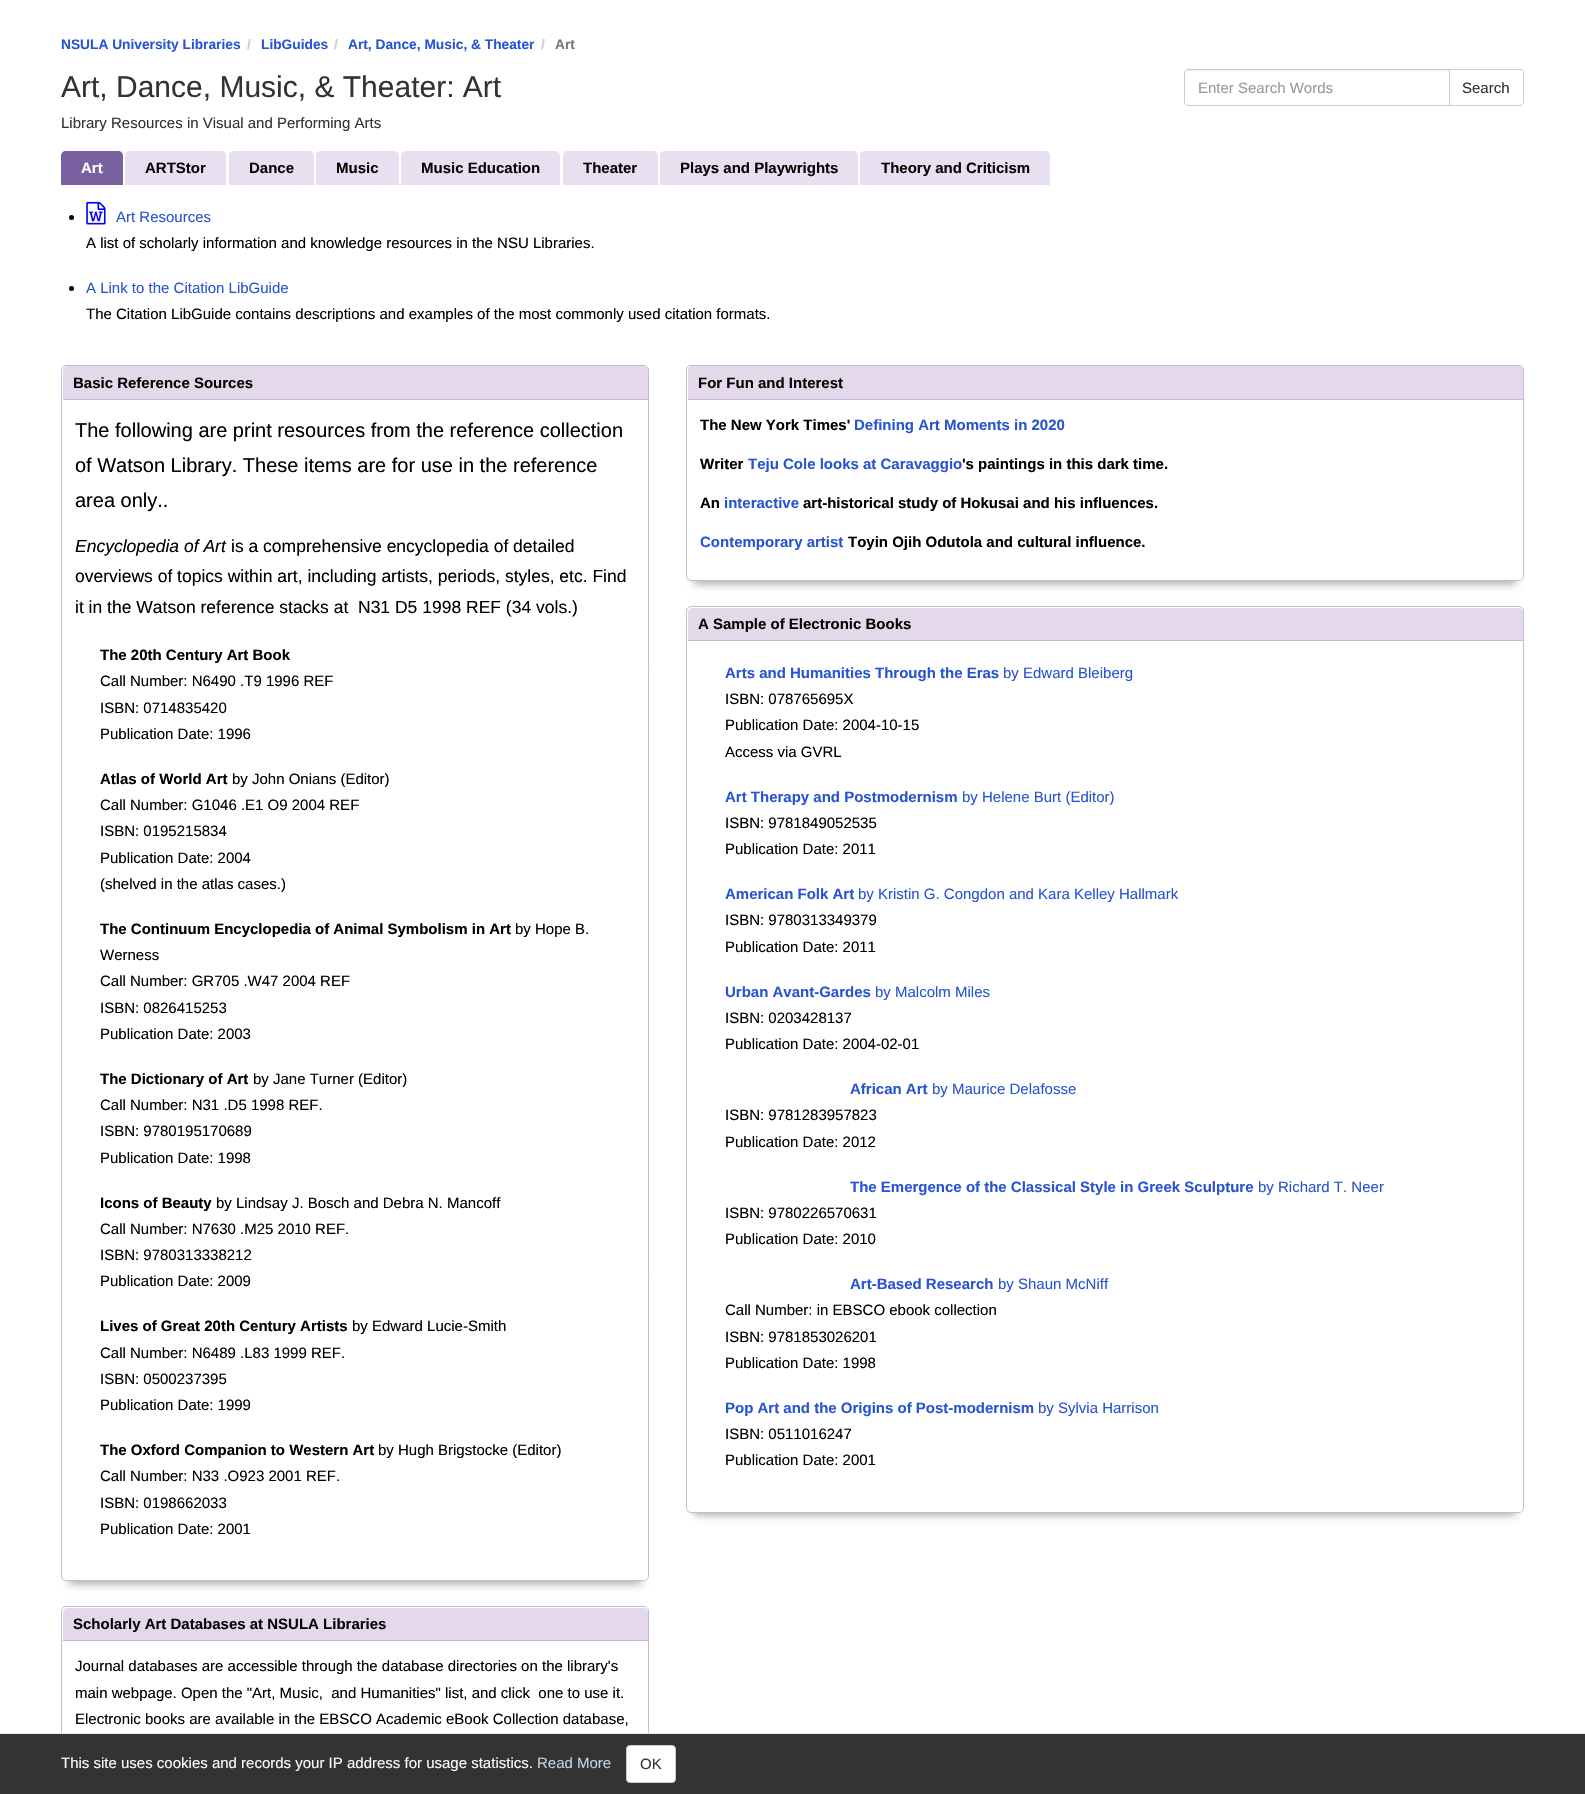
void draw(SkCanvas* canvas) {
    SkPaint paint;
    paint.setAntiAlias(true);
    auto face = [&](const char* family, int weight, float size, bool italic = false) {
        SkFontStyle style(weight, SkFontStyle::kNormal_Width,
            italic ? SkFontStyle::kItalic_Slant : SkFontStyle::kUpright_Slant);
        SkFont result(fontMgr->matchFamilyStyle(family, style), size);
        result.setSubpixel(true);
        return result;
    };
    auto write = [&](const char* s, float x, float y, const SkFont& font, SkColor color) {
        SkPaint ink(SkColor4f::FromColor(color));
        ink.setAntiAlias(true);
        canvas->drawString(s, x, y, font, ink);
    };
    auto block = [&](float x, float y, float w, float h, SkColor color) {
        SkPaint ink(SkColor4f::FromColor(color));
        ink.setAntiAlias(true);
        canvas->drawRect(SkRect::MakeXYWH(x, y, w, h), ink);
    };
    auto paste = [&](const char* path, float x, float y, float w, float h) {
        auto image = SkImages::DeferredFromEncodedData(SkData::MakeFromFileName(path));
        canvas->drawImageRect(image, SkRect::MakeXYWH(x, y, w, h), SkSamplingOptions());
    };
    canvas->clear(SK_ColorWHITE);
    auto kFont1 = face("Liberation Sans", 700, 13.75f);
    write("NSULA University Libraries", 61, 49, kFont1, SkColorSetRGB(41, 84, 209));
    write("/", 247, 49, kFont1, SkColorSetRGB(204, 204, 204));
    write("LibGuides", 261, 49, kFont1, SkColorSetRGB(41, 84, 209));
    write("/", 334, 49, kFont1, SkColorSetRGB(204, 204, 204));
    write("Art, Dance, Music, & Theater", 348, 49, kFont1, SkColorSetRGB(41, 84, 209));
    write("/", 541, 49, kFont1, SkColorSetRGB(204, 204, 204));
    write("Art", 555, 49, kFont1, SkColorSetRGB(118, 118, 118));
    auto kFont2 = face("Liberation Sans", 400, 30);
    write("Art, Dance, Music, & Theater: Art", 61, 97, kFont2, SkColorSetRGB(51, 51, 51));
    auto kFont3 = face("Liberation Sans", 400, 15);
    write("Library Resources in Visual and Performing Arts", 61, 128, kFont3, SkColorSetRGB(51, 51, 51));
    paint.setColor(SkColorSetRGB(236, 236, 236));
    canvas->drawPath(SkPathBuilder().moveTo(1188, 71).lineTo(1449, 71).lineTo(1449, 70).lineTo(1188, 70).cubicTo(1186, 70, 1185, 71, 1185, 72).lineTo(1185, 74).cubicTo(1185, 72, 1186, 71, 1188, 71).close().detach(), paint);
    paint.setStyle(SkPaint::kStroke_Style);
    paint.setStrokeWidth(1);
    paint.setColor(SkColorSetRGB(204, 204, 204));
    canvas->drawPath(SkPathBuilder().moveTo(1188, 69.5f).lineTo(1449.5f, 69.5f).lineTo(1449.5f, 105.5f).lineTo(1188, 105.5f).cubicTo(1186, 105.5f, 1184.5f, 104, 1184.5f, 102).lineTo(1184.5f, 73).cubicTo(1184.5f, 71, 1186, 69.5f, 1188, 69.5f).close().detach(), paint);
    write("Enter Search Words", 1198, 93, kFont3, SkColorSetRGB(153, 153, 153));
    paint.setStyle(SkPaint::kFill_Style);
    paint.setColor(SK_ColorWHITE);
    canvas->drawPath(SkPathBuilder().moveTo(1449.5f, 69.5f).lineTo(1520, 69.5f).cubicTo(1522, 69.5f, 1523.5f, 71, 1523.5f, 73).lineTo(1523.5f, 102).cubicTo(1523.5f, 104, 1522, 105.5f, 1520, 105.5f).lineTo(1449.5f, 105.5f).close().detach(), paint);
    paint.setStyle(SkPaint::kStroke_Style);
    paint.setColor(SkColorSetRGB(204, 204, 204));
    canvas->drawPath(SkPathBuilder().moveTo(1449.5f, 69.5f).lineTo(1520, 69.5f).cubicTo(1522, 69.5f, 1523.5f, 71, 1523.5f, 73).lineTo(1523.5f, 102).cubicTo(1523.5f, 104, 1522, 105.5f, 1520, 105.5f).lineTo(1449.5f, 105.5f).close().detach(), paint);
    write("Search", 1462, 93, kFont3, SkColorSetRGB(51, 51, 51));
    paint.setStyle(SkPaint::kFill_Style);
    paint.setColor(SkColorSetRGB(121, 97, 161));
    canvas->drawPath(SkPathBuilder().moveTo(66, 151).lineTo(118, 151).cubicTo(121, 151, 123, 153, 123, 156).lineTo(123, 185).lineTo(61, 185).lineTo(61, 156).cubicTo(61, 153, 63, 151, 66, 151).close().detach(), paint);
    auto kFont4 = face("Liberation Sans", 700, 15);
    write("Art", 81, 173, kFont4, SK_ColorWHITE);
    paint.setColor(SkColorSetRGB(232, 223, 240));
    canvas->drawPath(SkPathBuilder().moveTo(130, 151).lineTo(221, 151).cubicTo(224, 151, 226, 153, 226, 156).lineTo(226, 185).lineTo(125, 185).lineTo(125, 156).cubicTo(125, 153, 127, 151, 130, 151).close().detach(), paint);
    write("ARTStor", 145, 173, kFont4, SkColorSetRGB(8, 4, 4));
    canvas->drawPath(SkPathBuilder().moveTo(234, 151).lineTo(309, 151).cubicTo(312, 151, 314, 153, 314, 156).lineTo(314, 185).lineTo(229, 185).lineTo(229, 156).cubicTo(229, 153, 231, 151, 234, 151).close().detach(), paint);
    write("Dance", 249, 173, kFont4, SkColorSetRGB(8, 4, 4));
    canvas->drawPath(SkPathBuilder().moveTo(321, 151).lineTo(394, 151).cubicTo(397, 151, 399, 153, 399, 156).lineTo(399, 185).lineTo(316, 185).lineTo(316, 156).cubicTo(316, 153, 318, 151, 321, 151).close().detach(), paint);
    write("Music", 336, 173, kFont4, SkColorSetRGB(8, 4, 4));
    canvas->drawPath(SkPathBuilder().moveTo(406, 151).lineTo(555, 151).cubicTo(558, 151, 560, 153, 560, 156).lineTo(560, 185).lineTo(401, 185).lineTo(401, 156).cubicTo(401, 153, 403, 151, 406, 151).close().detach(), paint);
    write("Music Education", 421, 173, kFont4, SkColorSetRGB(8, 4, 4));
    canvas->drawPath(SkPathBuilder().moveTo(568, 151).lineTo(653, 151).cubicTo(656, 151, 658, 153, 658, 156).lineTo(658, 185).lineTo(563, 185).lineTo(563, 156).cubicTo(563, 153, 565, 151, 568, 151).close().detach(), paint);
    write("Theater", 583, 173, kFont4, SkColorSetRGB(8, 4, 4));
    canvas->drawPath(SkPathBuilder().moveTo(665, 151).lineTo(853, 151).cubicTo(856, 151, 858, 153, 858, 156).lineTo(858, 185).lineTo(660, 185).lineTo(660, 156).cubicTo(660, 153, 662, 151, 665, 151).close().detach(), paint);
    write("Plays and Playwrights", 680, 173, kFont4, SkColorSetRGB(8, 4, 4));
    canvas->drawPath(SkPathBuilder().moveTo(865, 151).lineTo(1045, 151).cubicTo(1048, 151, 1050, 153, 1050, 156).lineTo(1050, 185).lineTo(860, 185).lineTo(860, 156).cubicTo(860, 153, 862, 151, 865, 151).close().detach(), paint);
    write("Theory and Criticism", 881, 173, kFont4, SkColorSetRGB(8, 4, 4));
    paint.setColor(SK_ColorBLACK);
    canvas->drawCircle(71.5f, 217.5f, 2.5f, paint);
    paste("pic1.png", 86, 201, 20, 24);
    write("Art Resources", 116, 222, kFont3, SkColorSetRGB(41, 84, 209));
    write("A list of scholarly information and knowledge resources in the NSU Libraries.", 86, 248, kFont3, SK_ColorBLACK);
    canvas->drawCircle(71.5f, 288.5f, 2.5f, paint);
    write("A Link to the Citation LibGuide", 86, 293, kFont3, SkColorSetRGB(41, 84, 209));
    write("The Citation LibGuide contains descriptions and examples of the most commonly used citation formats.", 86, 319, kFont3, SK_ColorBLACK);
    canvas->save();
    canvas->clipPath(SkPathBuilder(SkPathFillType::kEvenOdd).moveTo(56, 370).lineTo(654, 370).lineTo(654, 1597).lineTo(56, 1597).close().moveTo(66, 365).lineTo(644, 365).cubicTo(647, 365, 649, 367, 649, 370).lineTo(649, 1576).cubicTo(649, 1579, 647, 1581, 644, 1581).lineTo(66, 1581).cubicTo(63, 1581, 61, 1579, 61, 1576).lineTo(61, 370).cubicTo(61, 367, 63, 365, 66, 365).close().detach(), true);
    paint.setColor(SkColorSetRGB(170, 170, 170));
    paint.setMaskFilter(SkMaskFilter::MakeBlur(kNormal_SkBlurStyle, 4));
    canvas->drawRect(SkRect::MakeXYWH(69, 383, 572, 1201), paint);
    paint.setMaskFilter(nullptr);
    canvas->restore();
    paint.setStyle(SkPaint::kStroke_Style);
    paint.setColor(SkColorSetRGB(201, 185, 217));
    canvas->drawRoundRect(SkRect::MakeXYWH(61.5f, 365.5f, 587, 1215), 4.5f, 4.5f, paint);
    paint.setStyle(SkPaint::kFill_Style);
    paint.setColor(SkColorSetRGB(227, 217, 235));
    canvas->drawPath(SkPathBuilder().moveTo(67, 366).lineTo(644, 366).cubicTo(646, 366, 648, 368, 648, 370).lineTo(648, 400).lineTo(63, 400).lineTo(63, 370).cubicTo(63, 368, 65, 366, 67, 366).close().detach(), paint);
    block(63, 399, 585, 1, SkColorSetRGB(201, 185, 217));
    write("Basic Reference Sources", 73, 388, kFont4, SkColorSetRGB(8, 4, 4));
    auto kFont5 = face("Liberation Sans", 400, 20);
    write("The following are print resources from the reference collection", 75, 437, kFont5, SK_ColorBLACK);
    write("of Watson Library. These items are for use in the reference", 75, 472, kFont5, SK_ColorBLACK);
    write("area only..", 75, 507, kFont5, SK_ColorBLACK);
    auto kFont6 = face("Liberation Sans", 400, 17.5f, true);
    write("Encyclopedia of Art", 75, 552, kFont6, SK_ColorBLACK);
    auto kFont7 = face("Liberation Sans", 400, 17.5f);
    write("is a comprehensive encyclopedia of detailed", 231, 552, kFont7, SK_ColorBLACK);
    write("overviews of topics within art, including artists, periods, styles, etc. Find", 75, 582, kFont7, SK_ColorBLACK);
    write("it in the Watson reference stacks at", 75, 613, kFont7, SK_ColorBLACK);
    write("N31 D5 1998 REF (34 vols.)", 358, 613, kFont7, SK_ColorBLACK);
    write("The 20th Century Art Book", 100, 660, kFont4, SK_ColorBLACK);
    write("Call Number: N6490 .T9 1996 REF", 100, 686, kFont3, SK_ColorBLACK);
    write("ISBN: 0714835420", 100, 713, kFont3, SK_ColorBLACK);
    write("Publication Date: 1996", 100, 739, kFont3, SK_ColorBLACK);
    write("Atlas of World Art", 100, 784, kFont4, SK_ColorBLACK);
    write("by John Onians (Editor)", 232, 784, kFont3, SK_ColorBLACK);
    write("Call Number: G1046 .E1 O9 2004 REF", 100, 810, kFont3, SK_ColorBLACK);
    write("ISBN: 0195215834", 100, 836, kFont3, SK_ColorBLACK);
    write("Publication Date: 2004", 100, 863, kFont3, SK_ColorBLACK);
    write("(shelved in the atlas cases.)", 100, 889, kFont3, SK_ColorBLACK);
    write("The Continuum Encyclopedia of Animal Symbolism in Art", 100, 934, kFont4, SK_ColorBLACK);
    write("by Hope B.", 515, 934, kFont3, SK_ColorBLACK);
    write("Werness", 100, 960, kFont3, SK_ColorBLACK);
    write("Call Number: GR705 .W47 2004 REF", 100, 986, kFont3, SK_ColorBLACK);
    write("ISBN: 0826415253", 100, 1013, kFont3, SK_ColorBLACK);
    write("Publication Date: 2003", 100, 1039, kFont3, SK_ColorBLACK);
    write("The Dictionary of Art", 100, 1084, kFont4, SK_ColorBLACK);
    write("by Jane Turner (Editor)", 253, 1084, kFont3, SK_ColorBLACK);
    write("Call Number: N31 .D5 1998 REF.", 100, 1110, kFont3, SK_ColorBLACK);
    write("ISBN: 9780195170689", 100, 1136, kFont3, SK_ColorBLACK);
    write("Publication Date: 1998", 100, 1163, kFont3, SK_ColorBLACK);
    write("Icons of Beauty", 100, 1208, kFont4, SK_ColorBLACK);
    write("by Lindsay J. Bosch and Debra N. Mancoff", 216, 1208, kFont3, SK_ColorBLACK);
    write("Call Number: N7630 .M25 2010 REF.", 100, 1234, kFont3, SK_ColorBLACK);
    write("ISBN: 9780313338212", 100, 1260, kFont3, SK_ColorBLACK);
    write("Publication Date: 2009", 100, 1286, kFont3, SK_ColorBLACK);
    write("Lives of Great 20th Century Artists", 100, 1331, kFont4, SK_ColorBLACK);
    write("by Edward Lucie-Smith", 352, 1331, kFont3, SK_ColorBLACK);
    write("Call Number: N6489 .L83 1999 REF.", 100, 1358, kFont3, SK_ColorBLACK);
    write("ISBN: 0500237395", 100, 1384, kFont3, SK_ColorBLACK);
    write("Publication Date: 1999", 100, 1410, kFont3, SK_ColorBLACK);
    write("The Oxford Companion to Western Art", 100, 1455, kFont4, SK_ColorBLACK);
    write("by Hugh Brigstocke (Editor)", 378, 1455, kFont3, SK_ColorBLACK);
    write("Call Number: N33 .O923 2001 REF.", 100, 1481, kFont3, SK_ColorBLACK);
    write("ISBN: 0198662033", 100, 1508, kFont3, SK_ColorBLACK);
    write("Publication Date: 2001", 100, 1534, kFont3, SK_ColorBLACK);
    paint.setStyle(SkPaint::kStroke_Style);
    paint.setColor(SkColorSetRGB(201, 185, 217));
    canvas->drawRoundRect(SkRect::MakeXYWH(61.5f, 1606.5f, 587, 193), 4.5f, 4.5f, paint);
    paint.setStyle(SkPaint::kFill_Style);
    paint.setColor(SkColorSetRGB(227, 217, 235));
    canvas->drawPath(SkPathBuilder().moveTo(67, 1608).lineTo(644, 1608).cubicTo(646, 1608, 648, 1610, 648, 1612).lineTo(648, 1641).lineTo(63, 1641).lineTo(63, 1612).cubicTo(63, 1610, 65, 1608, 67, 1608).close().detach(), paint);
    block(63, 1640, 585, 1, SkColorSetRGB(201, 185, 217));
    write("Scholarly Art Databases at NSULA Libraries", 73, 1629, kFont4, SkColorSetRGB(8, 4, 4));
    write("Journal databases are accessible through the database directories on the library's", 75, 1671, kFont3, SK_ColorBLACK);
    write("main webpage. Open the \"Art, Music,  and Humanities\" list, and click  one to use it.", 75, 1698, kFont3, SK_ColorBLACK);
    write("Electronic books are available in the EBSCO Academic eBook Collection database,", 75, 1724, kFont3, SK_ColorBLACK);
    canvas->save();
    canvas->clipPath(SkPathBuilder(SkPathFillType::kEvenOdd).moveTo(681, 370).lineTo(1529, 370).lineTo(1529, 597).lineTo(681, 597).close().moveTo(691, 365).lineTo(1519, 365).cubicTo(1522, 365, 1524, 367, 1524, 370).lineTo(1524, 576).cubicTo(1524, 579, 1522, 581, 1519, 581).lineTo(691, 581).cubicTo(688, 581, 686, 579, 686, 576).lineTo(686, 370).cubicTo(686, 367, 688, 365, 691, 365).close().detach(), true);
    paint.setColor(SkColorSetRGB(170, 170, 170));
    paint.setMaskFilter(SkMaskFilter::MakeBlur(kNormal_SkBlurStyle, 4));
    canvas->drawRect(SkRect::MakeXYWH(694, 383, 822, 201), paint);
    paint.setMaskFilter(nullptr);
    canvas->restore();
    paint.setStyle(SkPaint::kStroke_Style);
    paint.setColor(SkColorSetRGB(201, 185, 217));
    canvas->drawRoundRect(SkRect::MakeXYWH(686.5f, 365.5f, 837, 215), 4.5f, 4.5f, paint);
    paint.setStyle(SkPaint::kFill_Style);
    paint.setColor(SkColorSetRGB(227, 217, 235));
    canvas->drawPath(SkPathBuilder().moveTo(692, 366).lineTo(1519, 366).cubicTo(1521, 366, 1523, 368, 1523, 370).lineTo(1523, 400).lineTo(688, 400).lineTo(688, 370).cubicTo(688, 368, 690, 366, 692, 366).close().detach(), paint);
    block(688, 399, 835, 1, SkColorSetRGB(201, 185, 217));
    write("For Fun and Interest", 698, 388, kFont4, SkColorSetRGB(8, 4, 4));
    write("The New York Times'", 700, 430, kFont4, SK_ColorBLACK);
    write("Defining Art Moments in 2020", 854, 430, kFont4, SkColorSetRGB(41, 84, 209));
    write("Writer", 700, 469, kFont4, SK_ColorBLACK);
    write("Teju Cole looks at Caravaggio", 748, 469, kFont4, SkColorSetRGB(41, 84, 209));
    write("'s paintings in this dark time.", 962, 469, kFont4, SK_ColorBLACK);
    write("An", 700, 508, kFont4, SK_ColorBLACK);
    write("interactive", 724, 508, kFont4, SkColorSetRGB(41, 84, 209));
    write("art-historical study of Hokusai and his influences.", 803, 508, kFont4, SK_ColorBLACK);
    write("Contemporary artist", 700, 547, kFont4, SkColorSetRGB(41, 84, 209));
    write("Toyin Ojih Odutola and cultural influence.", 848, 547, kFont4, SK_ColorBLACK);
    paint.setColor(SkColorSetRGB(170, 170, 170));
    paint.setMaskFilter(SkMaskFilter::MakeBlur(kNormal_SkBlurStyle, 4));
    canvas->drawRect(SkRect::MakeXYWH(694, 624, 822, 891), paint);
    paint.setMaskFilter(nullptr);
    paint.setColor(SK_ColorWHITE);
    canvas->drawRoundRect(SkRect::MakeXYWH(686.5f, 606.5f, 837, 906), 4.5f, 4.5f, paint);
    paint.setStyle(SkPaint::kStroke_Style);
    paint.setColor(SkColorSetRGB(201, 185, 217));
    canvas->drawRoundRect(SkRect::MakeXYWH(686.5f, 606.5f, 837, 906), 4.5f, 4.5f, paint);
    paint.setStyle(SkPaint::kFill_Style);
    paint.setColor(SkColorSetRGB(227, 217, 235));
    canvas->drawPath(SkPathBuilder().moveTo(692, 608).lineTo(1519, 608).cubicTo(1521, 608, 1523, 610, 1523, 612).lineTo(1523, 641).lineTo(688, 641).lineTo(688, 612).cubicTo(688, 610, 690, 608, 692, 608).close().detach(), paint);
    block(688, 640, 835, 1, SkColorSetRGB(201, 185, 217));
    write("A Sample of Electronic Books", 698, 629, kFont4, SkColorSetRGB(8, 4, 4));
    write("Arts and Humanities Through the Eras", 725, 678, kFont4, SkColorSetRGB(41, 84, 209));
    write("by Edward Bleiberg", 1003, 678, kFont3, SkColorSetRGB(41, 84, 209));
    write("ISBN: 078765695X", 725, 704, kFont3, SK_ColorBLACK);
    write("Publication Date: 2004-10-15", 725, 730, kFont3, SK_ColorBLACK);
    write("Access via GVRL", 725, 757, kFont3, SK_ColorBLACK);
    write("Art Therapy and Postmodernism", 725, 802, kFont4, SkColorSetRGB(41, 84, 209));
    write("by Helene Burt (Editor)", 962, 802, kFont3, SkColorSetRGB(41, 84, 209));
    write("ISBN: 9781849052535", 725, 828, kFont3, SK_ColorBLACK);
    write("Publication Date: 2011", 725, 854, kFont3, SK_ColorBLACK);
    write("American Folk Art", 725, 899, kFont4, SkColorSetRGB(41, 84, 209));
    write("by Kristin G. Congdon and Kara Kelley Hallmark", 858, 899, kFont3, SkColorSetRGB(41, 84, 209));
    write("ISBN: 9780313349379", 725, 925, kFont3, SK_ColorBLACK);
    write("Publication Date: 2011", 725, 952, kFont3, SK_ColorBLACK);
    write("Urban Avant-Gardes", 725, 997, kFont4, SkColorSetRGB(41, 84, 209));
    write("by Malcolm Miles", 875, 997, kFont3, SkColorSetRGB(41, 84, 209));
    write("ISBN: 0203428137", 725, 1023, kFont3, SK_ColorBLACK);
    write("Publication Date: 2004-02-01", 725, 1049, kFont3, SK_ColorBLACK);
    write("African Art", 850, 1094, kFont4, SkColorSetRGB(41, 84, 209));
    write("by Maurice Delafosse", 932, 1094, kFont3, SkColorSetRGB(41, 84, 209));
    write("ISBN: 9781283957823", 725, 1120, kFont3, SK_ColorBLACK);
    write("Publication Date: 2012", 725, 1147, kFont3, SK_ColorBLACK);
    write("The Emergence of the Classical Style in Greek Sculpture", 850, 1192, kFont4, SkColorSetRGB(41, 84, 209));
    write("by Richard T. Neer", 1258, 1192, kFont3, SkColorSetRGB(41, 84, 209));
    write("ISBN: 9780226570631", 725, 1218, kFont3, SK_ColorBLACK);
    write("Publication Date: 2010", 725, 1244, kFont3, SK_ColorBLACK);
    write("Art-Based Research", 850, 1289, kFont4, SkColorSetRGB(41, 84, 209));
    write("by Shaun McNiff", 998, 1289, kFont3, SkColorSetRGB(41, 84, 209));
    write("Call Number: in EBSCO ebook collection", 725, 1315, kFont3, SK_ColorBLACK);
    write("ISBN: 9781853026201", 725, 1342, kFont3, SK_ColorBLACK);
    write("Publication Date: 1998", 725, 1368, kFont3, SK_ColorBLACK);
    write("Pop Art and the Origins of Post-modernism", 725, 1413, kFont4, SkColorSetRGB(41, 84, 209));
    write("by Sylvia Harrison", 1038, 1413, kFont3, SkColorSetRGB(41, 84, 209));
    write("ISBN: 0511016247", 725, 1439, kFont3, SK_ColorBLACK);
    write("Publication Date: 2001", 725, 1465, kFont3, SK_ColorBLACK);
    block(0, 1734, 1585, 60, SkColorSetRGB(51, 51, 51));
    block(0, 1733, 1585, 1, SkColorSetRGB(231, 231, 231));
    write("This site uses cookies and records your IP address for usage statistics.", 61, 1768, kFont3, SkColorSetRGB(248, 248, 248));
    write("Read More", 537, 1768, kFont3, SkColorSetRGB(185, 211, 235));
    paint.setColor(SK_ColorWHITE);
    canvas->drawRoundRect(SkRect::MakeXYWH(626.5f, 1745.5f, 49, 37), 3.5f, 3.5f, paint);
    paint.setStyle(SkPaint::kStroke_Style);
    paint.setColor(SkColorSetRGB(204, 204, 204));
    canvas->drawRoundRect(SkRect::MakeXYWH(626.5f, 1745.5f, 49, 37), 3.5f, 3.5f, paint);
    write("OK", 640, 1769, kFont3, SkColorSetRGB(51, 51, 51));
}
